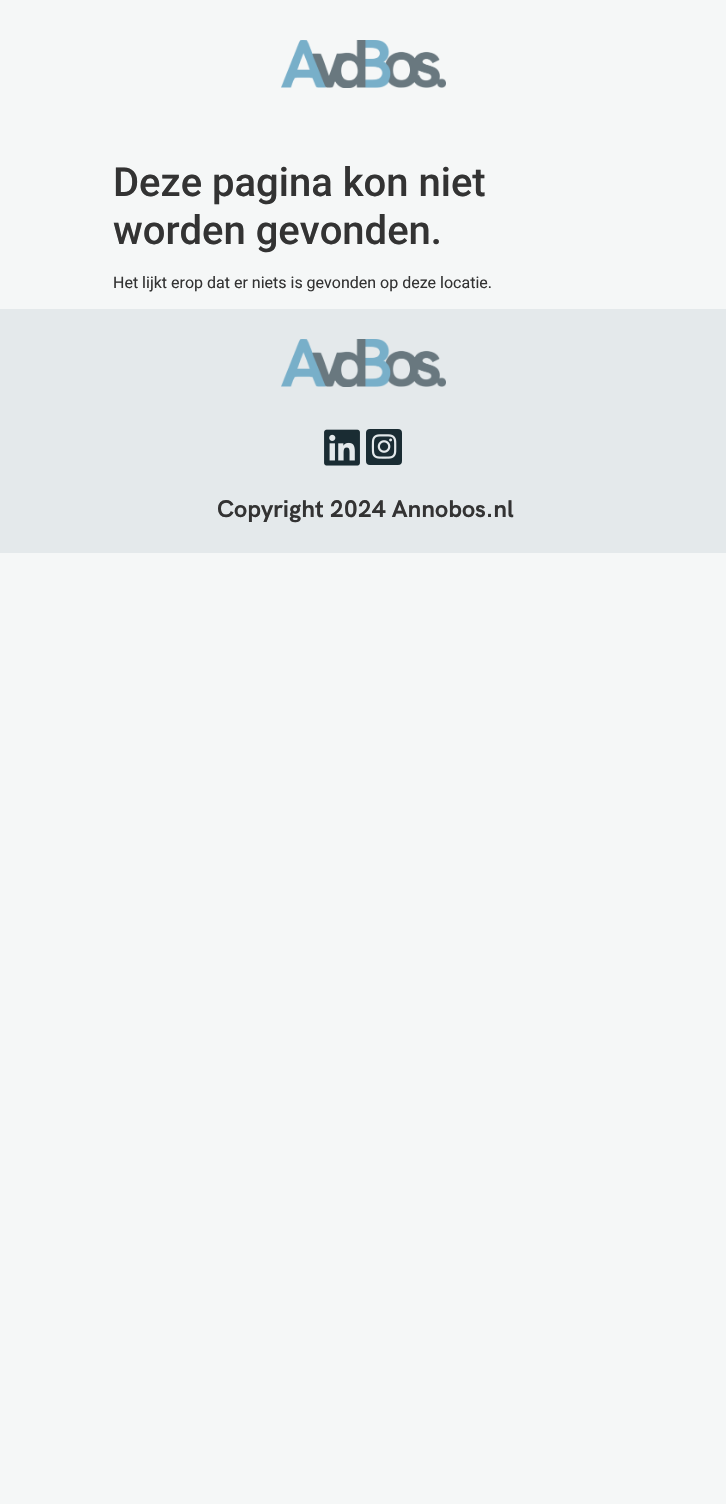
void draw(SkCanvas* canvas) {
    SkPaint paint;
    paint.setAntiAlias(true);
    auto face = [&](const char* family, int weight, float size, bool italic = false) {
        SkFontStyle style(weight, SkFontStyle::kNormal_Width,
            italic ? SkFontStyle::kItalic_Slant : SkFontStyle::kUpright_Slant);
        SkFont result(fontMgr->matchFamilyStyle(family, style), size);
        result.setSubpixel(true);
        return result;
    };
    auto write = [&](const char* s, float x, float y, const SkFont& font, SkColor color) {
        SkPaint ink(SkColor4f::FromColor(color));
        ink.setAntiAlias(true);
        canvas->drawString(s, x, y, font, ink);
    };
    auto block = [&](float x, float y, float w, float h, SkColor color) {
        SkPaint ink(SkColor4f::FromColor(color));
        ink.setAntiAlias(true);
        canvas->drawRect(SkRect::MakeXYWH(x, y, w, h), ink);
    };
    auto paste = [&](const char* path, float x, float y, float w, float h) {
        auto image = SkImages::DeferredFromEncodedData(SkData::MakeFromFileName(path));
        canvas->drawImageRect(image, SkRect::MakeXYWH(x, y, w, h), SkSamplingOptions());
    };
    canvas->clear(SkColorSetRGB(245, 247, 247));
    paste("pic1.png", 281, 40, 165, 48);
    auto kFont1 = face("Roboto", 500, 40);
    write("Deze pagina kon niet", 113, 196, kFont1, SkColorSetRGB(51, 51, 51));
    write("worden gevonden.", 113, 244, kFont1, SkColorSetRGB(51, 51, 51));
    auto kFont2 = face("Roboto", 400, 16);
    write("Het lijkt erop dat er niets is gevonden op deze locatie.", 113, 288, kFont2, SkColorSetRGB(51, 51, 51));
    block(0, 309, 726, 244, SkColorSetRGB(228, 233, 235));
    paste("pic2.png", 281, 339, 165, 48);
    paste("pic3.png", 324, 429, 36, 37);
    paint.setColor(SkColorSetRGB(26, 44, 51));
    canvas->drawRoundRect(SkRect::MakeXYWH(364.5f, 427.5f, 39, 39), 5.5f, 5.5f, paint);
    paint.setStyle(SkPaint::kStroke_Style);
    paint.setStrokeWidth(3);
    paint.setColor(SkColorSetRGB(228, 233, 235));
    canvas->drawRoundRect(SkRect::MakeXYWH(364.5f, 427.5f, 39, 39), 5.5f, 5.5f, paint);
    paste("pic4.png", 371, 434, 26, 25);
    auto kFont3 = face("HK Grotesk", 700, 24);
    write("Copyright 2024 Annobos.nl", 217, 517, kFont3, SkColorSetRGB(51, 51, 51));
}
